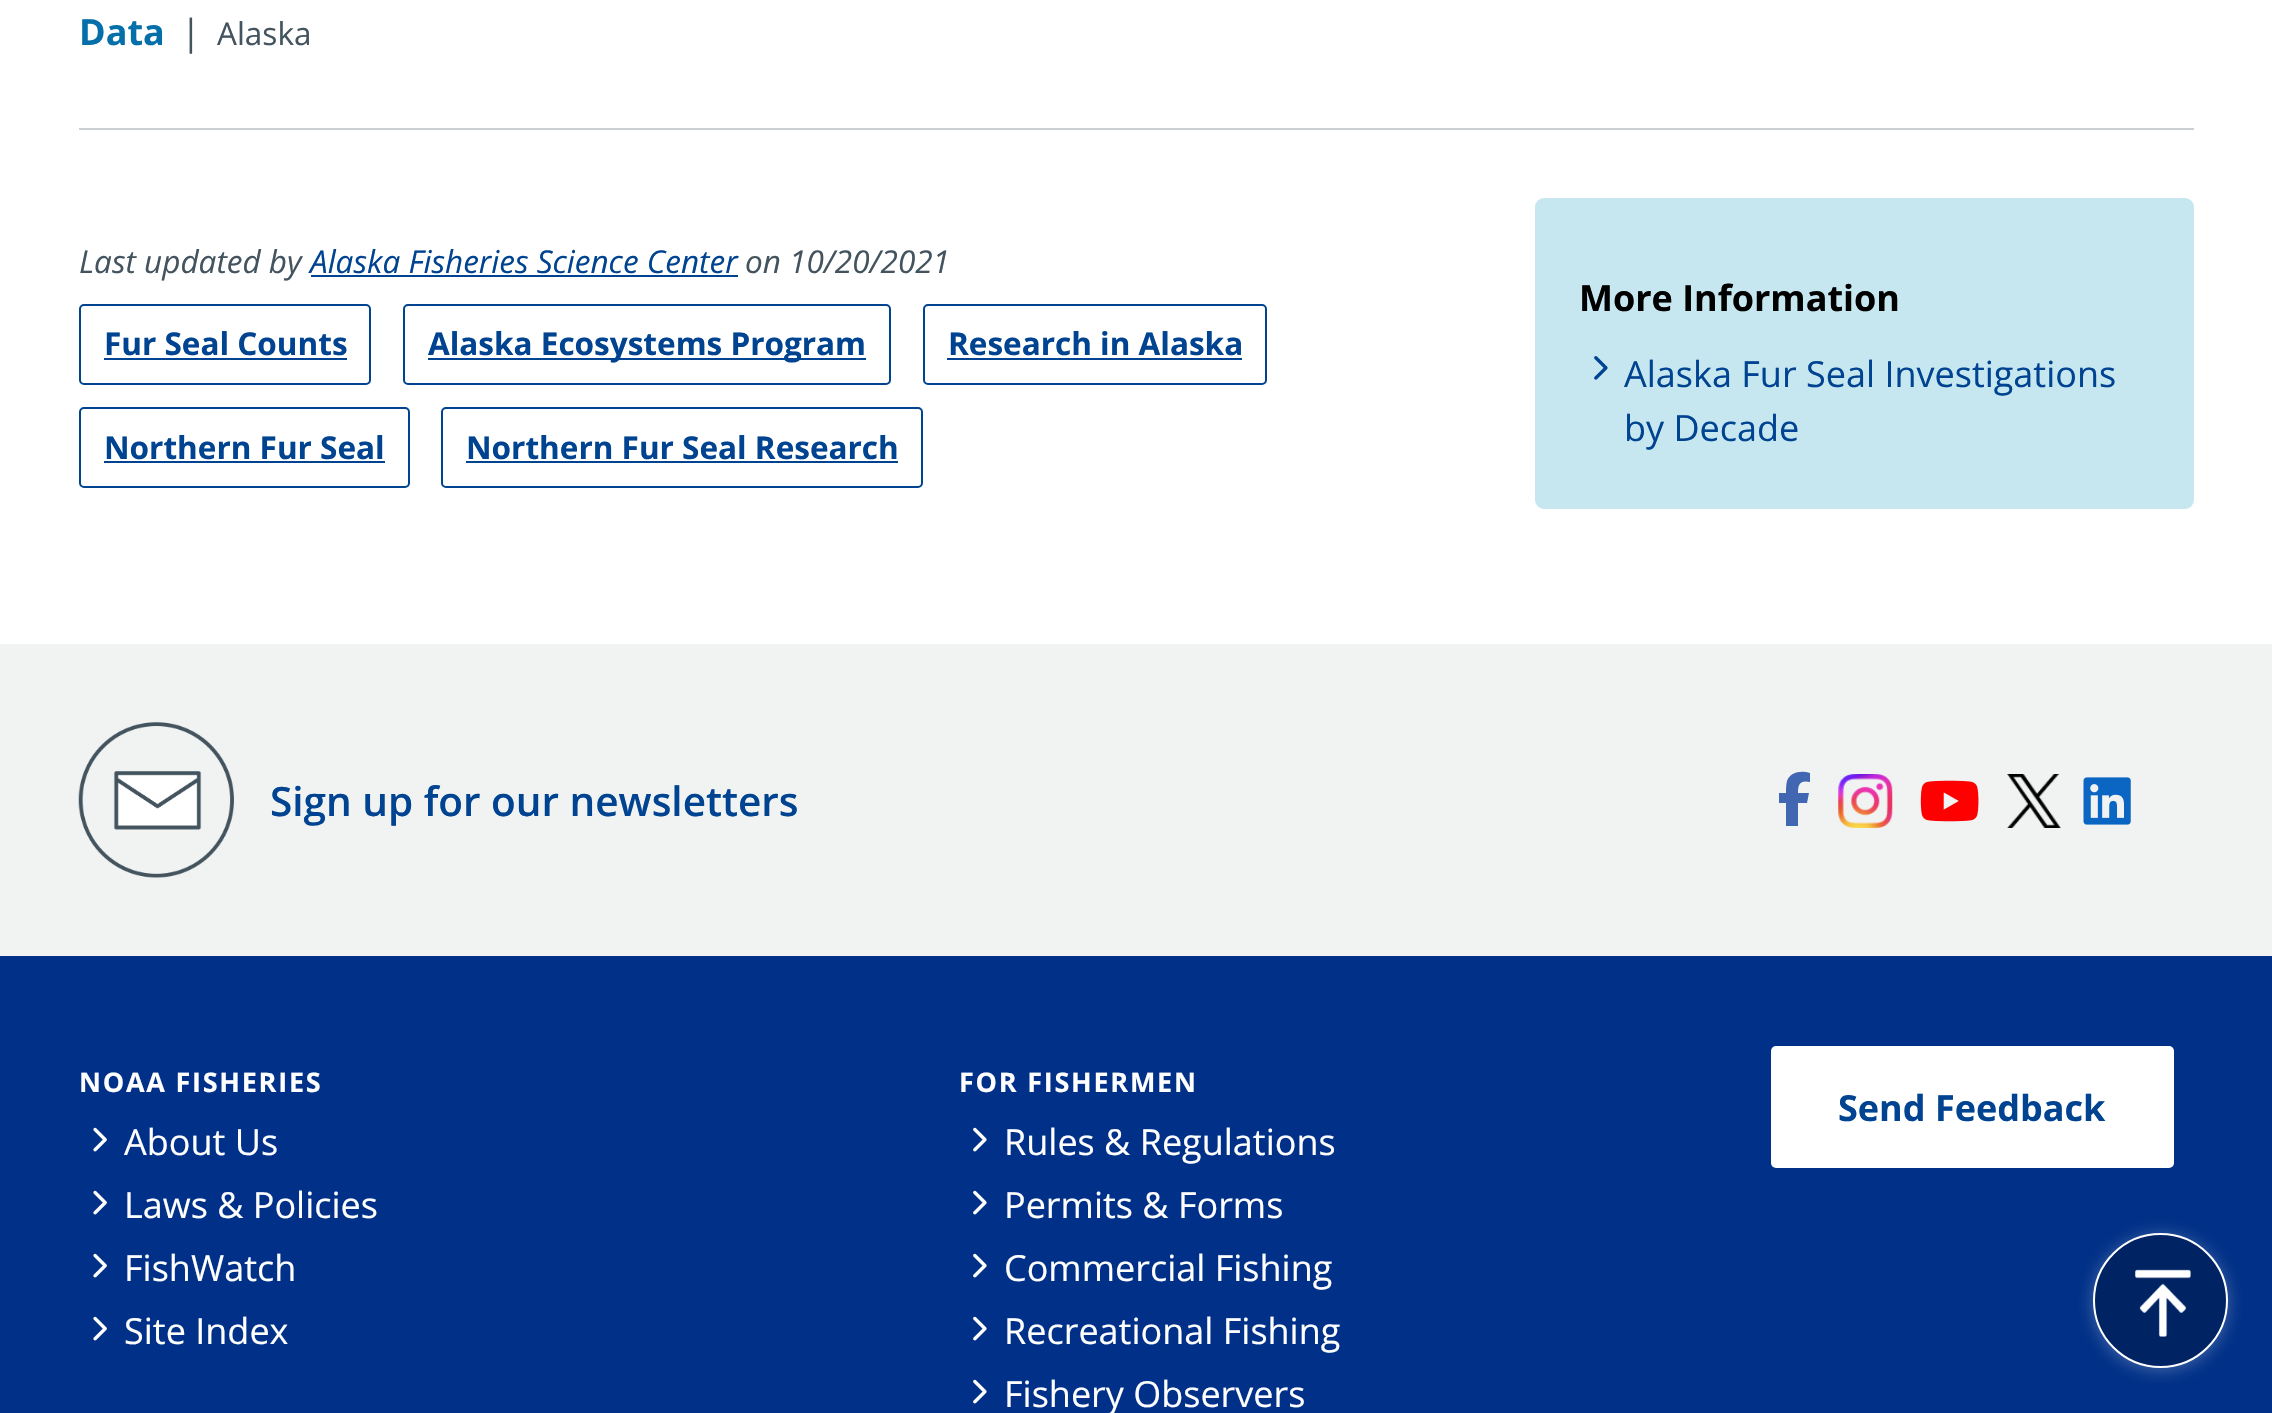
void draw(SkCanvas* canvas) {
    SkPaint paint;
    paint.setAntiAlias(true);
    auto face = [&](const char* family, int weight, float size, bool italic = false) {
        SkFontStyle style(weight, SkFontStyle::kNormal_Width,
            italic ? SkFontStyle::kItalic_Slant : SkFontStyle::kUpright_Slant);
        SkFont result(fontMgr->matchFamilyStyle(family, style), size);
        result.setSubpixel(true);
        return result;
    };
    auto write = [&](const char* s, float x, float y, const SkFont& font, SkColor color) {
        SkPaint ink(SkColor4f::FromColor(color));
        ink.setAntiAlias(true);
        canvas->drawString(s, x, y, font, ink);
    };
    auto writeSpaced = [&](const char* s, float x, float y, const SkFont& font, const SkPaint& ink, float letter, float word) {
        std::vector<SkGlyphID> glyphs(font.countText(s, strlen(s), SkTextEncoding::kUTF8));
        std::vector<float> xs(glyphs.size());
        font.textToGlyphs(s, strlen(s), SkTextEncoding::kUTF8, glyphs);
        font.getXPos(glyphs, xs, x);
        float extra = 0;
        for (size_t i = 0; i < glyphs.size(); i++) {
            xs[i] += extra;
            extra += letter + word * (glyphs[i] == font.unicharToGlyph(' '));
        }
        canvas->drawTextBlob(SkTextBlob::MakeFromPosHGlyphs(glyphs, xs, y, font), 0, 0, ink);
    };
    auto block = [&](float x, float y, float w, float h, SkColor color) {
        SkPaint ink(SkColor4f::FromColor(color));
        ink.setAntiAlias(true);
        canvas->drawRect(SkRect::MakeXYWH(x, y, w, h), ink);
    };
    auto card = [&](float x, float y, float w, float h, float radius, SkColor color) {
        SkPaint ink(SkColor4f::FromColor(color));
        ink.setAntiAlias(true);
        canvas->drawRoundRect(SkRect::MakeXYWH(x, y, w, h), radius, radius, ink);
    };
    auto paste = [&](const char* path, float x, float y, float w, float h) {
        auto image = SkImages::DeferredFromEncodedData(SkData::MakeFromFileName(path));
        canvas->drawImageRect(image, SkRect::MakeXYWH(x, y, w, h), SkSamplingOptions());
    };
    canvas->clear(SK_ColorWHITE);
    block(79, 128, 2115, 2, SkColorSetRGB(203, 207, 209));
    auto kFont1 = face("Open Sans", 700, 36);
    write("Data", 79, 45, kFont1, SkColorSetRGB(5, 111, 170));
    auto kFont2 = face("Open Sans", 400, 36);
    write("|", 181, 45, kFont2, SkColorSetRGB(68, 84, 95));
    auto kFont3 = face("Open Sans", 400, 31.5f);
    write("Alaska", 217, 45, kFont3, SkColorSetRGB(68, 84, 95));
    auto kFont4 = face("Open Sans", 400, 31.5f, true);
    write("Last updated by", 79, 273, kFont4, SkColorSetRGB(68, 84, 95));
    write("Alaska Fisheries Science Center", 310, 273, kFont4, SkColorSetRGB(0, 67, 145));
    block(311, 275, 427, 2, SkColorSetRGB(0, 67, 145));
    write("on 10/20/2021", 745, 273, kFont4, SkColorSetRGB(68, 84, 95));
    paint.setStyle(SkPaint::kStroke_Style);
    paint.setStrokeWidth(2);
    paint.setColor(SkColorSetRGB(0, 67, 145));
    canvas->drawRoundRect(SkRect::MakeXYWH(80, 305, 290, 79), 4, 4, paint);
    auto kFont5 = face("Open Sans", 700, 31.5f);
    write("Fur Seal Counts", 104, 355, kFont5, SkColorSetRGB(0, 67, 145));
    block(104, 358, 243, 2, SkColorSetRGB(0, 67, 145));
    canvas->drawRoundRect(SkRect::MakeXYWH(404, 305, 486, 79), 4, 4, paint);
    block(428, 358, 438, 2, SkColorSetRGB(0, 67, 145));
    write("Alaska Ecosystems Program", 428, 355, kFont5, SkColorSetRGB(0, 67, 145));
    canvas->drawRoundRect(SkRect::MakeXYWH(924, 305, 342, 79), 4, 4, paint);
    write("Research in Alaska", 948, 355, kFont5, SkColorSetRGB(0, 67, 145));
    block(947, 358, 295, 2, SkColorSetRGB(0, 67, 145));
    canvas->drawRoundRect(SkRect::MakeXYWH(80, 408, 329, 79), 4, 4, paint);
    write("Northern Fur Seal", 104, 459, kFont5, SkColorSetRGB(0, 67, 145));
    block(104, 461, 281, 2, SkColorSetRGB(0, 67, 145));
    canvas->drawRoundRect(SkRect::MakeXYWH(442, 408, 480, 79), 4, 4, paint);
    write("Northern Fur Seal Research", 466, 459, kFont5, SkColorSetRGB(0, 67, 145));
    block(466, 461, 432, 2, SkColorSetRGB(0, 67, 145));
    card(1535, 198, 659, 311, 9, SkColorSetRGB(198, 230, 240));
    write("More Information", 1579, 311, kFont1, SK_ColorBLACK);
    paste("pic1.png", 1594, 356, 14, 24);
    write("Alaska Fur Seal Investigations", 1624, 387, kFont2, SkColorSetRGB(0, 67, 145));
    write("by Decade", 1624, 441, kFont2, SkColorSetRGB(0, 67, 145));
    block(0, 644, 2272, 312, SkColorSetRGB(241, 243, 243));
    paste("pic2.png", 78, 722, 156, 156);
    auto kFont6 = face("Open Sans", 600, 40.5f);
    write("Sign up for our newsletters", 270, 816, kFont6, SkColorSetRGB(0, 67, 145));
    paint.setStyle(SkPaint::kFill_Style);
    paint.setColor(SkColorSetRGB(66, 103, 178));
    canvas->drawPath(SkPathBuilder().moveTo(1786, 803).lineTo(1786, 826).lineTo(1786, 803).lineTo(1786, 826).lineTo(1798, 826).lineTo(1798, 803).lineTo(1807, 803).lineTo(1809, 793).lineTo(1798, 793).cubicTo(1798, 784, 1800, 780, 1810, 782).lineTo(1810, 773).cubicTo(1801, 770, 1790, 772, 1787, 781).cubicTo(1786, 785, 1786, 789, 1786, 793).lineTo(1779, 793).lineTo(1779, 803).close().detach(), paint);
    paste("pic3.png", 1838, 774, 55, 54);
    paste("pic4.png", 1920, 780, 59, 42);
    paste("pic5.png", 2007, 774, 54, 54);
    paste("pic6.png", 2083, 777, 48, 48);
    block(0, 956, 2272, 457, SkColorSetRGB(0, 48, 135));
    auto kFont7 = face("Open Sans", 700, 27);
    paint.setColor(SK_ColorWHITE);
    writeSpaced("NOAA FISHERIES", 79, 1092, kFont7, paint, 1.75f, 0);
    paste("pic7.png", 93, 1127, 14, 25);
    write("About Us", 124, 1155, kFont2, SK_ColorWHITE);
    paste("pic7.png", 93, 1190, 14, 25);
    write("Laws & Policies", 124, 1218, kFont2, SK_ColorWHITE);
    paste("pic7.png", 93, 1253, 14, 25);
    write("FishWatch", 124, 1281, kFont2, SK_ColorWHITE);
    paste("pic7.png", 93, 1316, 14, 25);
    write("Site Index", 124, 1344, kFont2, SK_ColorWHITE);
    writeSpaced("FOR FISHERMEN", 959, 1092, kFont7, paint, 1.75f, 0);
    paste("pic8.png", 973, 1127, 14, 25);
    write("Rules & Regulations", 1004, 1155, kFont2, SK_ColorWHITE);
    paste("pic8.png", 973, 1190, 14, 25);
    write("Permits & Forms", 1004, 1218, kFont2, SK_ColorWHITE);
    paste("pic8.png", 973, 1253, 14, 25);
    write("Commercial Fishing", 1004, 1281, kFont2, SK_ColorWHITE);
    paste("pic8.png", 973, 1316, 14, 25);
    write("Recreational Fishing", 1004, 1344, kFont2, SK_ColorWHITE);
    paste("pic8.png", 973, 1379, 14, 25);
    write("Fishery Observers", 1004, 1407, kFont2, SK_ColorWHITE);
    card(1771, 1046, 403, 122, 5, SK_ColorWHITE);
    write("Send Feedback", 1838, 1121, kFont1, SkColorSetRGB(0, 67, 145));
    paint.setColor(SkColorSetARGB(69, 255, 255, 255));
    paint.setMaskFilter(SkMaskFilter::MakeBlur(kNormal_SkBlurStyle, 8));
    canvas->drawRoundRect(SkRect::MakeXYWH(2093, 1235, 135, 135), 67.5f, 67.5f, paint);
    paint.setMaskFilter(nullptr);
    paint.setColor(SkColorSetRGB(0, 35, 100));
    canvas->drawCircle(2160.5f, 1300.5f, 66.5f, paint);
    paint.setStyle(SkPaint::kStroke_Style);
    paint.setColor(SK_ColorWHITE);
    canvas->drawCircle(2160.5f, 1300.5f, 66.5f, paint);
    paste("pic9.png", 2135, 1269, 56, 68);
}
